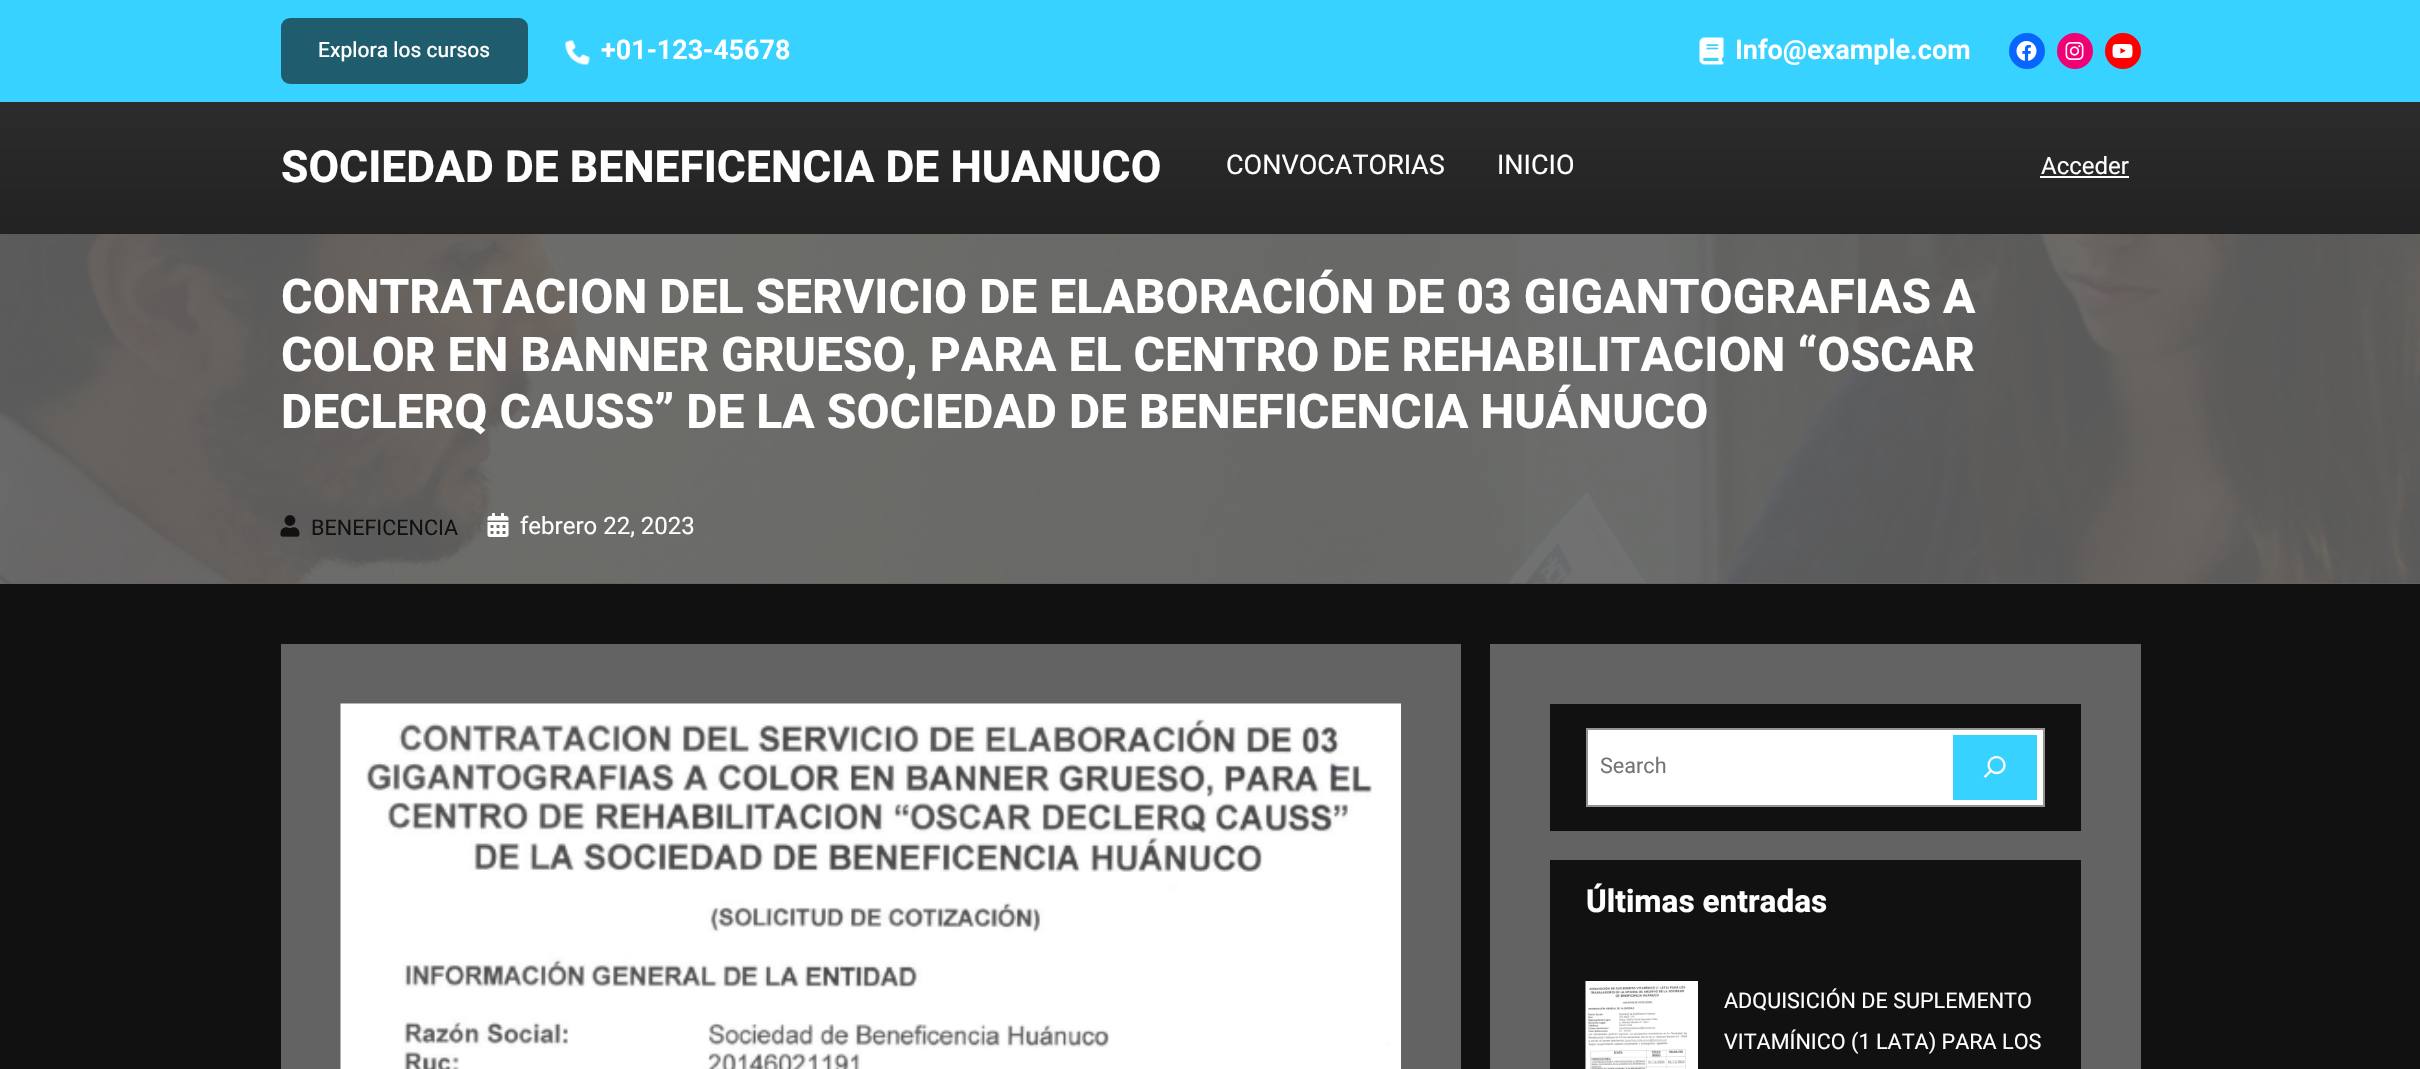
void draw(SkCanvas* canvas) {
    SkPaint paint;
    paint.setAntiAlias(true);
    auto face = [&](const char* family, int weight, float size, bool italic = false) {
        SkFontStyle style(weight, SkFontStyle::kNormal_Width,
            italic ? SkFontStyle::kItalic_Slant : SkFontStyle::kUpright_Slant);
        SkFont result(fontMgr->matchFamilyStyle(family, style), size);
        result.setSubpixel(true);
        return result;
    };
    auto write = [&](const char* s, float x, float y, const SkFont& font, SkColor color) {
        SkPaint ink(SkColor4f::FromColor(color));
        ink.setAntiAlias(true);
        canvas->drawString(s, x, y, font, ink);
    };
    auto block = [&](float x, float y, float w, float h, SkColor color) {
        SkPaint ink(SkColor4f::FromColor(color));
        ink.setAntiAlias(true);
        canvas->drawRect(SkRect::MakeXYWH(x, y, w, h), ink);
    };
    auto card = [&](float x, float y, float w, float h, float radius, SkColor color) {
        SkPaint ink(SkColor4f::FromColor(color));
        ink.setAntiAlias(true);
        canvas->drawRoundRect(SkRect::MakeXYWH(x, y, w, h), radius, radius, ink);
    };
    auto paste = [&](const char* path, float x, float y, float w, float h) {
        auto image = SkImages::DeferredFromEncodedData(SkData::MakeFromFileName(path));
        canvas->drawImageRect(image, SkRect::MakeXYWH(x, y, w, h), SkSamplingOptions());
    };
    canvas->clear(SkColorSetRGB(99, 99, 99));
    block(0, 0, 2420, 102, SkColorSetRGB(55, 210, 255));
    card(281, 18, 247, 66, 9, SkColorSetRGB(31, 92, 110));
    auto kFont1 = face("Heebo", 500, 21);
    write("Explora los cursos", 318, 57, kFont1, SK_ColorWHITE);
    paste("pic1.png", 565, 40, 25, 25);
    auto kFont2 = face("Heebo", 600, 27);
    write("+01-123-45678", 601, 59, kFont2, SK_ColorWHITE);
    paste("pic2.png", 1699, 37, 25, 28);
    write("Info@example.com", 1735, 59, kFont2, SK_ColorWHITE);
    paint.setColor(SkColorSetRGB(8, 102, 255));
    canvas->drawCircle(2027, 51, 18, paint);
    paste("pic3.png", 2016, 41, 21, 20);
    paint.setColor(SkColorSetRGB(240, 0, 117));
    canvas->drawCircle(2075, 51, 18, paint);
    paste("pic4.png", 2065, 42, 19, 18);
    paint.setColor(SkColorSetRGB(255, 0, 0));
    canvas->drawCircle(2123, 51, 18, paint);
    paste("pic5.png", 2112, 44, 21, 14);
    {
        const SkColor colors[] = {SkColorSetRGB(44, 44, 44), SkColorSetRGB(34, 34, 34)};
        const float stops[] = {0, 1};
        const SkPoint ends[] = {{1211, 102}, {1211, 234}};
        paint.setShader(SkGradientShader::MakeLinear(ends, colors, stops, 2, SkTileMode::kClamp));
        paint.setAlpha(255);
    }
    canvas->drawRect(SkRect::MakeXYWH(0, 102, 2420, 132), paint);
    auto kFont3 = face("Heebo", 700, 44.4f);
    write("SOCIEDAD DE BENEFICENCIA DE HUANUCO", 281, 182, kFont3, SK_ColorWHITE);
    auto kFont4 = face("Heebo", 400, 27);
    write("CONVOCATORIAS", 1226, 174, kFont4, SK_ColorWHITE);
    write("INICIO", 1497, 174, kFont4, SK_ColorWHITE);
    auto kFont5 = face("Heebo", 400, 24);
    write("Acceder", 2041, 174, kFont5, SK_ColorWHITE);
    block(2040, 176, 89, 2, SK_ColorWHITE);
    paste("pic6.png", 0, 234, 2420, 350);
    auto kFont6 = face("Heebo", 700, 48);
    write("CONTRATACION DEL SERVICIO DE ELABORACIÓN DE 03 GIGANTOGRAFIAS A", 281, 313, kFont6, SK_ColorWHITE);
    write("COLOR EN BANNER GRUESO, PARA EL CENTRO DE REHABILITACION “OSCAR", 281, 371, kFont6, SK_ColorWHITE);
    write("DECLERQ CAUSS” DE LA SOCIEDAD DE BENEFICENCIA HUÁNUCO", 281, 428, kFont6, SK_ColorWHITE);
    paste("pic7.png", 280, 515, 20, 22);
    auto kFont7 = face("Heebo", 400, 21.6f);
    write("BENEFICENCIA", 311, 535, kFont7, SkColorSetRGB(17, 17, 17));
    paste("pic8.png", 487, 513, 22, 24);
    write("febrero 22, 2023", 520, 534, kFont5, SK_ColorWHITE);
    block(0, 584, 2420, 485, SkColorSetRGB(17, 17, 17));
    block(281, 644, 1180, 425, SkColorSetRGB(99, 99, 99));
    paste("pic9.png", 340, 703, 1061, 366);
    block(1490, 644, 651, 425, SkColorSetRGB(99, 99, 99));
    block(1550, 704, 531, 127, SkColorSetRGB(17, 17, 17));
    paint.setShader(nullptr);
    paint.setColor(SK_ColorWHITE);
    canvas->drawRect(SkRect::MakeXYWH(1587, 729, 457, 77), paint);
    paint.setStyle(SkPaint::kStroke_Style);
    paint.setStrokeWidth(2);
    paint.setColor(SkColorSetRGB(148, 148, 148));
    canvas->drawRect(SkRect::MakeXYWH(1587, 729, 457, 77), paint);
    write("Search", 1600, 773, kFont7, SkColorSetRGB(117, 117, 117));
    block(1953, 735, 84, 65, SkColorSetRGB(55, 210, 255));
    paste("pic10.png", 1983, 756, 23, 22);
    block(1550, 860, 531, 209, SkColorSetRGB(17, 17, 17));
    auto kFont8 = face("Heebo", 700, 31.5f);
    write("Últimas entradas", 1586, 912, kFont8, SK_ColorWHITE);
    paste("pic11.png", 1585, 981, 113, 88);
    write("ADQUISICIÓN DE SUPLEMENTO", 1724, 1008, kFont7, SK_ColorWHITE);
    write("VITAMÍNICO (1 LATA) PARA LOS", 1724, 1049, kFont7, SK_ColorWHITE);
}
